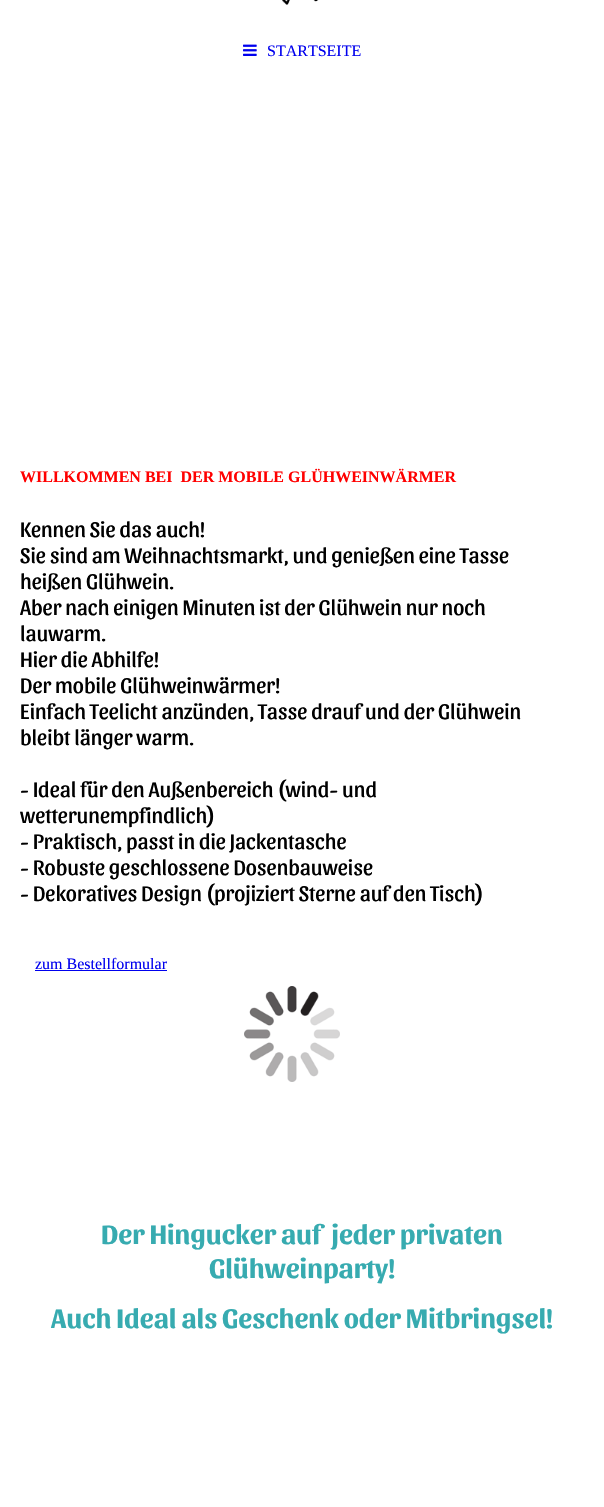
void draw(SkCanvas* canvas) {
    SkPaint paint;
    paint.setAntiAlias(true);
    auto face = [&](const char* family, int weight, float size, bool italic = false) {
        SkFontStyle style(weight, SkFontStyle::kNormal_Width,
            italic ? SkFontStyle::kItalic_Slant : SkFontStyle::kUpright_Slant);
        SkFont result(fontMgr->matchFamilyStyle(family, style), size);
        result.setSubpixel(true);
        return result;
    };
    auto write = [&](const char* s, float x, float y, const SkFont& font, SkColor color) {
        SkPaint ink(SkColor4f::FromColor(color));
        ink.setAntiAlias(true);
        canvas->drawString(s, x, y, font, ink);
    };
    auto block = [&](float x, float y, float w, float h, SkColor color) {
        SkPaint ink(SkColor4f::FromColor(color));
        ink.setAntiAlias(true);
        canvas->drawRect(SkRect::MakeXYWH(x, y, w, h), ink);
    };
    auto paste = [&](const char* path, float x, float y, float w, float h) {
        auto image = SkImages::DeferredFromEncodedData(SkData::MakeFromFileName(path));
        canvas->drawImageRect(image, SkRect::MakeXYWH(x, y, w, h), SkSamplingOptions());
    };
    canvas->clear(SK_ColorWHITE);
    paste("pic1.png", 282, 0, 37, 5);
    paste("pic2.png", 243, 44, 14, 12);
    auto kFont1 = face("Liberation Serif", 400, 16);
    write("STARTSEITE", 267, 56, kFont1, SkColorSetRGB(0, 0, 238));
    auto kFont2 = face("Liberation Serif", 700, 16);
    write("WILLKOMMEN BEI  DER MOBILE GLÜHWEINWÄRMER", 20, 482, kFont2, SkColorSetRGB(255, 0, 0));
    auto kFont3 = face("Sansita", 400, 22);
    write("Kennen Sie das auch!", 20, 537, kFont3, SK_ColorBLACK);
    write("Sie sind am Weihnachtsmarkt, und genießen eine Tasse", 20, 563, kFont3, SK_ColorBLACK);
    write("heißen Glühwein.", 20, 589, kFont3, SK_ColorBLACK);
    write("Aber nach einigen Minuten ist der Glühwein nur noch", 20, 615, kFont3, SK_ColorBLACK);
    write("lauwarm.", 20, 641, kFont3, SK_ColorBLACK);
    write("Hier die Abhilfe!", 20, 667, kFont3, SK_ColorBLACK);
    write("Der mobile Glühweinwärmer!", 20, 693, kFont3, SK_ColorBLACK);
    write("Einfach Teelicht anzünden, Tasse drauf und der Glühwein", 20, 719, kFont3, SK_ColorBLACK);
    write("bleibt länger warm.", 20, 745, kFont3, SK_ColorBLACK);
    write("- Ideal für den Außenbereich (wind- und", 20, 797, kFont3, SK_ColorBLACK);
    write("wetterunempfindlich)", 20, 823, kFont3, SK_ColorBLACK);
    write("- Praktisch, passt in die Jackentasche", 20, 849, kFont3, SK_ColorBLACK);
    write("- Robuste geschlossene Dosenbauweise", 20, 875, kFont3, SK_ColorBLACK);
    write("- Dekoratives Design (projiziert Sterne auf den Tisch)", 20, 901, kFont3, SK_ColorBLACK);
    write("zum Bestellformular", 35, 969, kFont1, SkColorSetRGB(0, 0, 238));
    block(35, 970, 132, 1, SkColorSetRGB(0, 0, 238));
    paste("pic3.png", 244, 986, 96, 96);
    auto kFont4 = face("Sansita", 700, 28);
    write("Der Hingucker auf  jeder privaten", 101, 1244, kFont4, SkColorSetRGB(55, 171, 176));
    write("Glühweinparty!", 209, 1278, kFont4, SkColorSetRGB(55, 171, 176));
    write("Auch Ideal als Geschenk oder Mitbringsel!", 51, 1328, kFont4, SkColorSetRGB(55, 171, 176));
}
